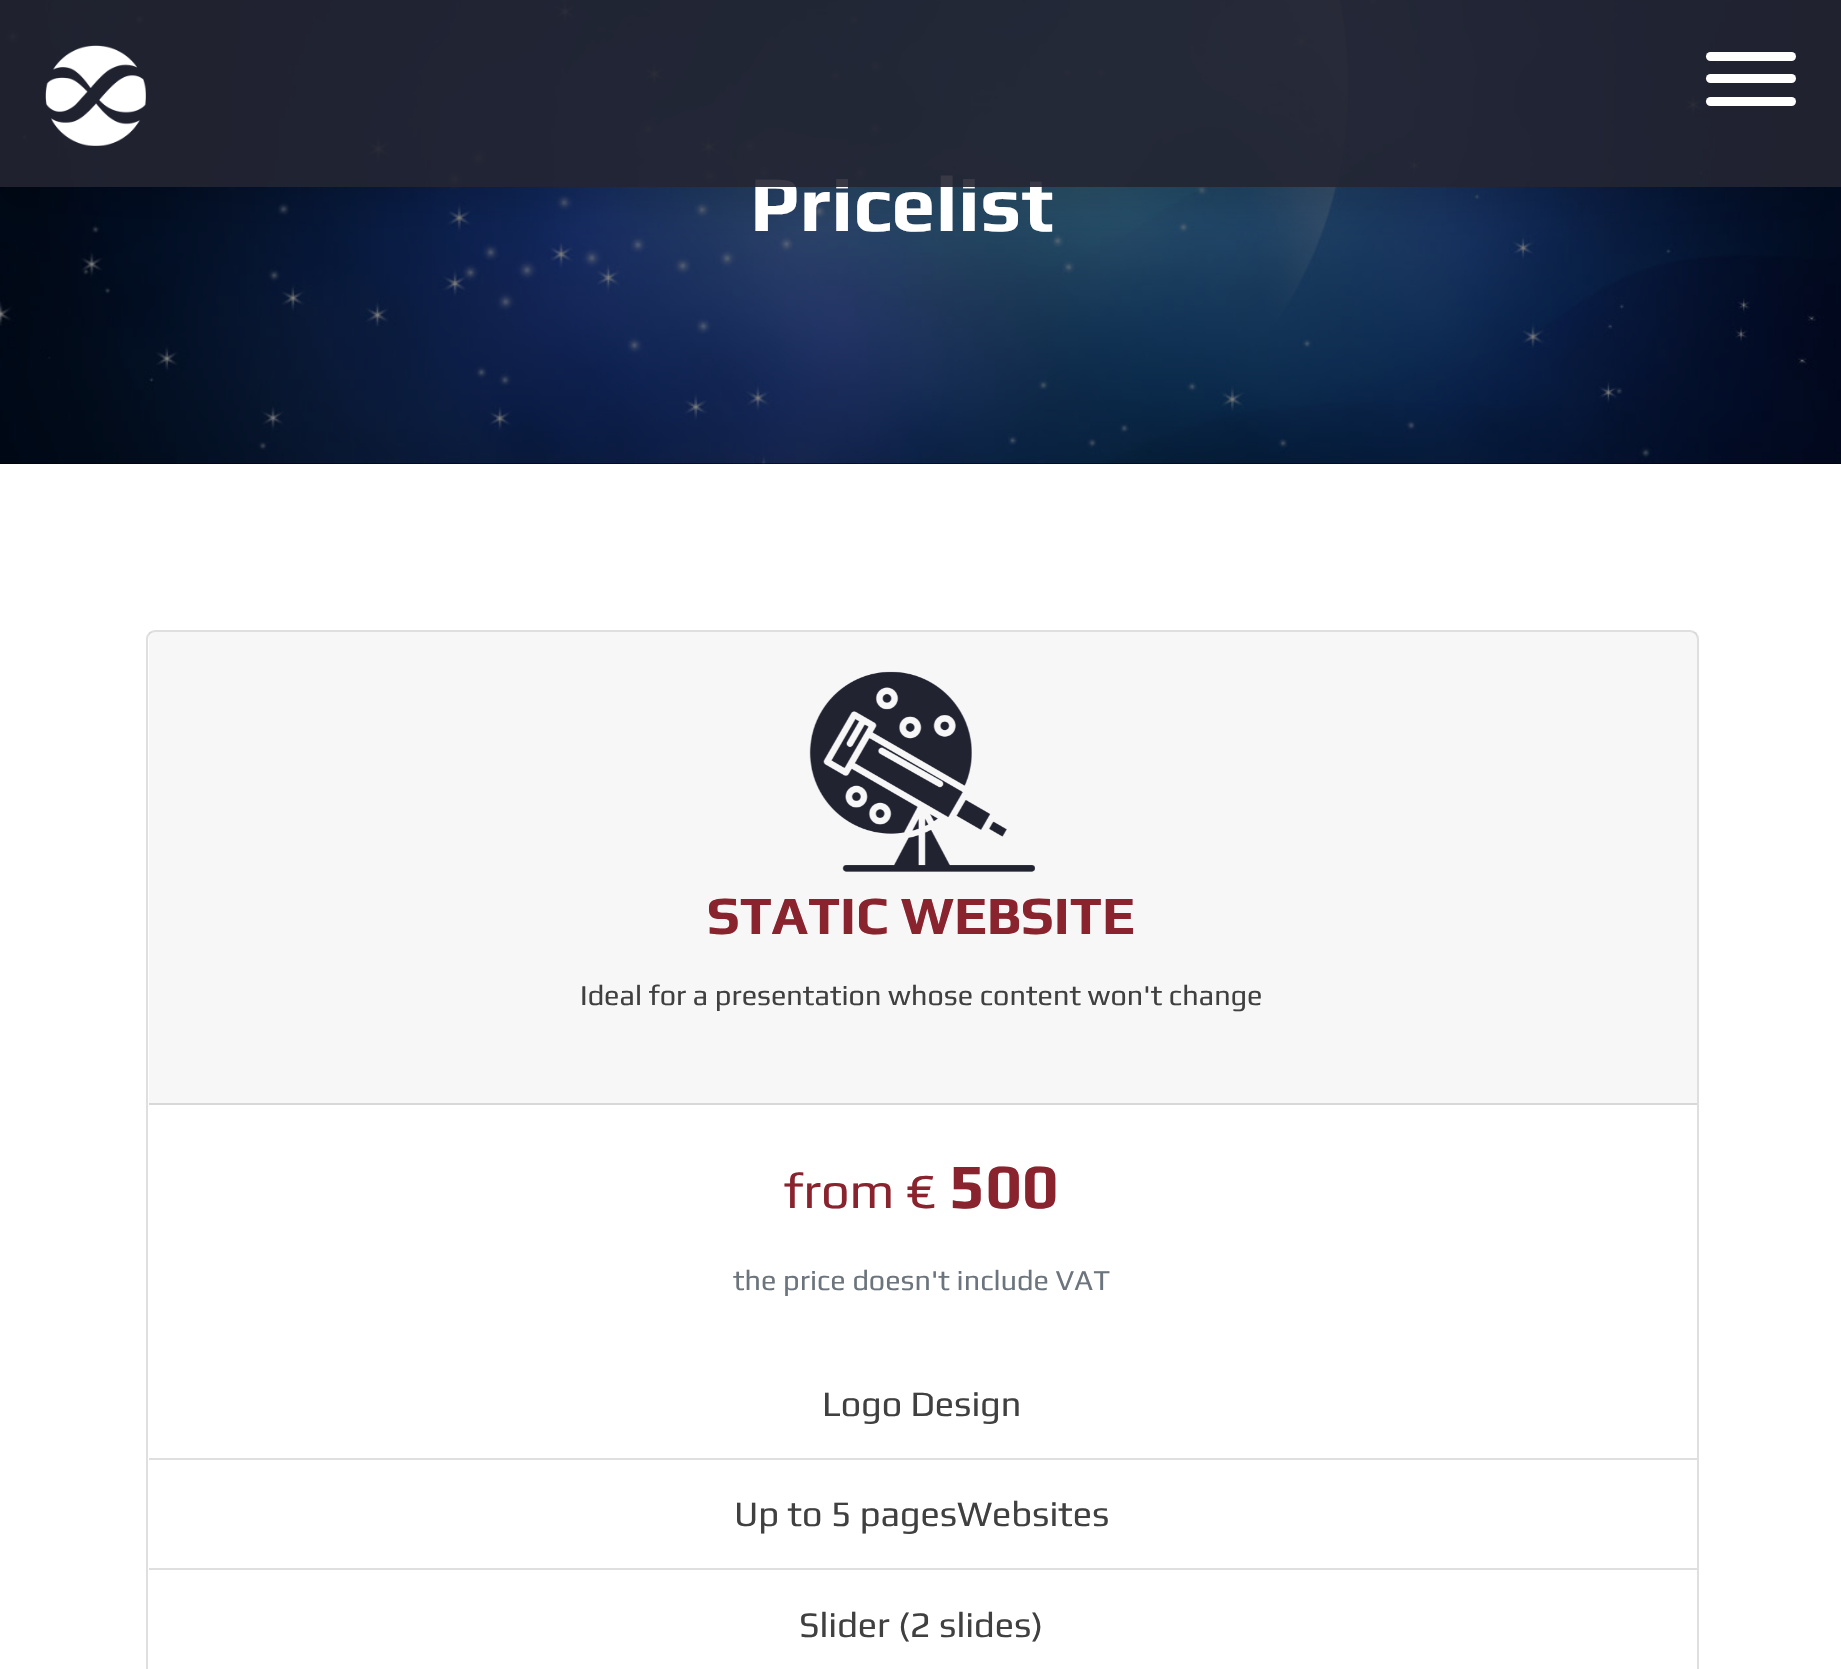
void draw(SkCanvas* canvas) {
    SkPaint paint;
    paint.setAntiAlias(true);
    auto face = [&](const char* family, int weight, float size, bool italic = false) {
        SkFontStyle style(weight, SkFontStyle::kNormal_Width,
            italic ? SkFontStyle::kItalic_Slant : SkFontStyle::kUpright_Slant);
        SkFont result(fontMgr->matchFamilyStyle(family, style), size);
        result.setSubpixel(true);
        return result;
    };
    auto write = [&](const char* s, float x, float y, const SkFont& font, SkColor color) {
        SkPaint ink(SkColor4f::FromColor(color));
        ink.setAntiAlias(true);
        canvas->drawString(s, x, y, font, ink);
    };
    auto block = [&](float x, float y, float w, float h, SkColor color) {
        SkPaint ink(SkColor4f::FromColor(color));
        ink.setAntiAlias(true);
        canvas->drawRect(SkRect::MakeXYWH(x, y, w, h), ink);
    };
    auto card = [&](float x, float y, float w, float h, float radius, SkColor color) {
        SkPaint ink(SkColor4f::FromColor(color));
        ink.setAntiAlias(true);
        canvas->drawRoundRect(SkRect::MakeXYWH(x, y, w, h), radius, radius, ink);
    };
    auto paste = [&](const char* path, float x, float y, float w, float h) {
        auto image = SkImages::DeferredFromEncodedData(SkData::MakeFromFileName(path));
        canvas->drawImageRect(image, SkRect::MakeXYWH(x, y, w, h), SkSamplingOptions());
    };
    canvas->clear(SK_ColorWHITE);
    block(0, 0, 1841, 464, SK_ColorBLACK);
    paste("pic2.png", 0, 0, 1841, 464);
    canvas->save();
    canvas->clipPath(SkPathBuilder(SkPathFillType::kEvenOdd).moveTo(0, 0).lineTo(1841, 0).lineTo(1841, 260).lineTo(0, 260).close().moveTo(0, 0).lineTo(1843, 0).lineTo(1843, 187).lineTo(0, 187).close().detach(), true);
    paint.setColor(SkColorSetARGB(38, 0, 0, 0));
    paint.setMaskFilter(SkMaskFilter::MakeBlur(kNormal_SkBlurStyle, 18));
    canvas->drawRect(SkRect::MakeXYWH(0, 18, 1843, 187), paint);
    paint.setMaskFilter(nullptr);
    canvas->restore();
    auto kFont1 = face("Play", 700, 79);
    write("Pricelist", 750, 231, kFont1, SK_ColorWHITE);
    block(0, 0, 1841, 187, SkColorSetARGB(230, 34, 35, 49));
    paste("pic1.png", 45, 45, 101, 101);
    card(1706, 97, 90, 9, 4.5f, SK_ColorWHITE);
    card(1706, 52, 90, 9, 4.5f, SK_ColorWHITE);
    card(1706, 74, 90, 9, 4.5f, SK_ColorWHITE);
    paint.setStyle(SkPaint::kStroke_Style);
    paint.setStrokeWidth(2);
    paint.setColor(SkColorSetRGB(223, 223, 223));
    canvas->drawRoundRect(SkRect::MakeXYWH(147, 631, 1551, 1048), 8, 8, paint);
    block(149, 632, 1548, 471, SkColorSetARGB(8, 0, 0, 0));
    block(149, 1103, 1548, 2, SkColorSetRGB(216, 216, 216));
    paste("pic3.png", 809, 671, 226, 201);
    auto kFont2 = face("Play", 700, 54);
    write("STATIC WEBSITE", 707, 934, kFont2, SkColorSetRGB(137, 35, 45));
    auto kFont3 = face("Play", 400, 28.8f);
    write("Ideal for a presentation whose content won't change", 580, 1005, kFont3, SkColorSetRGB(64, 64, 64));
    auto kFont4 = face("Play", 400, 50.5f);
    write("from €", 784, 1208, kFont4, SkColorSetRGB(137, 35, 45));
    auto kFont5 = face("Play", 700, 63);
    write("500", 949, 1208, kFont5, SkColorSetRGB(137, 35, 45));
    write("the price doesn't include VAT", 733, 1290, kFont3, SkColorSetRGB(108, 117, 125));
    block(149, 1458, 1548, 2, SkColorSetRGB(223, 223, 223));
    auto kFont6 = face("Play", 400, 36);
    write("Logo Design", 822, 1416, kFont6, SkColorSetRGB(64, 64, 64));
    block(149, 1568, 1548, 2, SkColorSetRGB(223, 223, 223));
    write("Up to 5 pagesWebsites", 734, 1526, kFont6, SkColorSetRGB(64, 64, 64));
    write("Slider (2 slides)", 799, 1637, kFont6, SkColorSetRGB(64, 64, 64));
}
